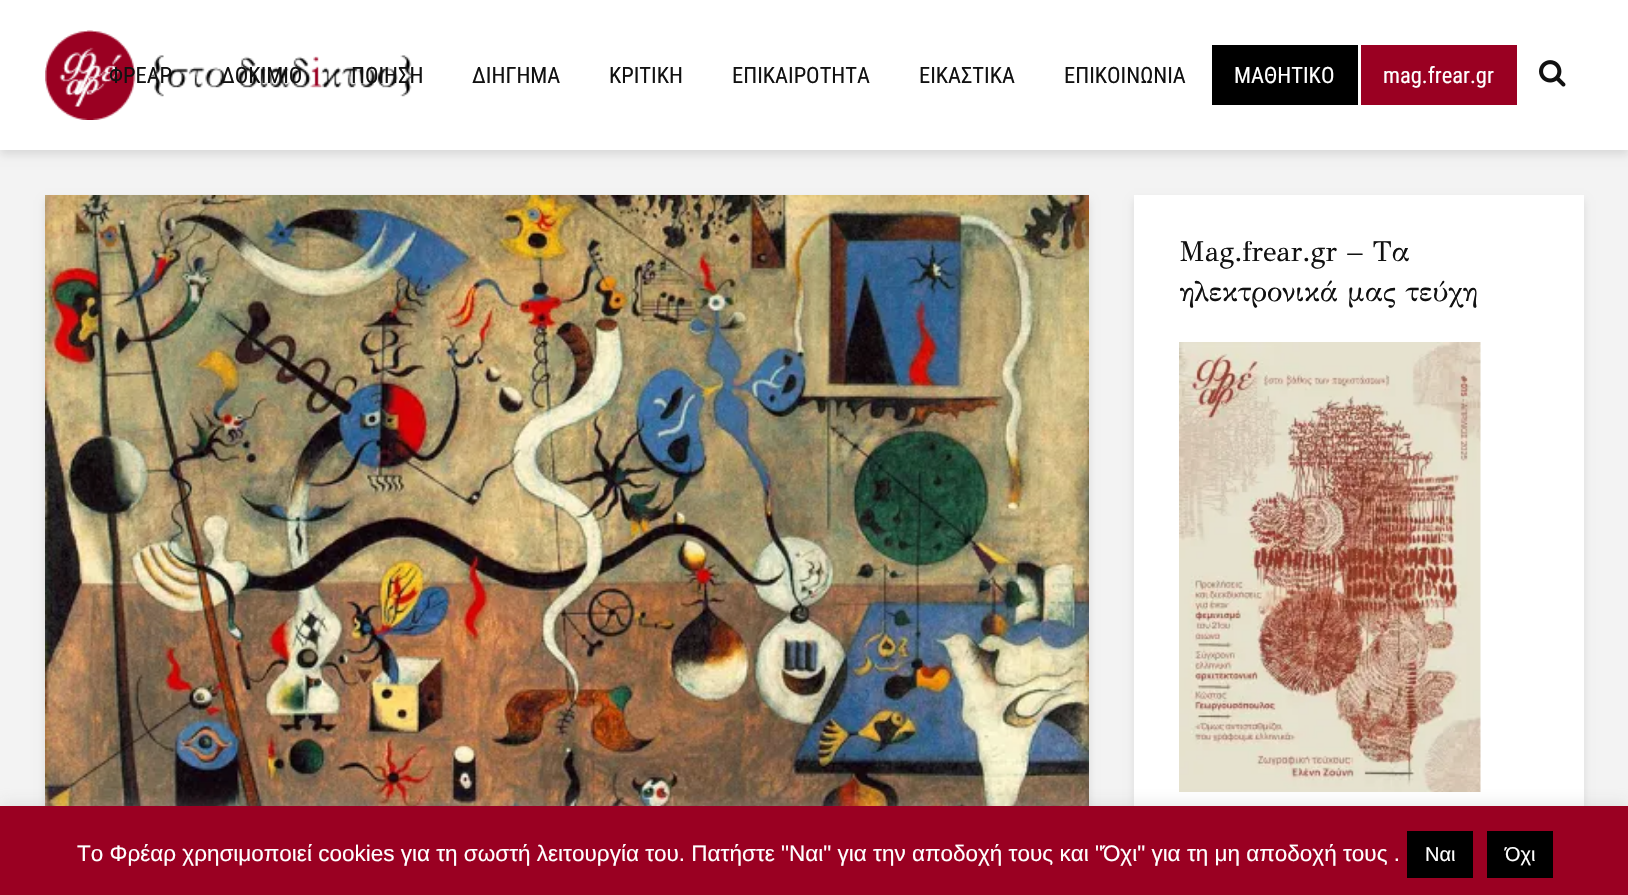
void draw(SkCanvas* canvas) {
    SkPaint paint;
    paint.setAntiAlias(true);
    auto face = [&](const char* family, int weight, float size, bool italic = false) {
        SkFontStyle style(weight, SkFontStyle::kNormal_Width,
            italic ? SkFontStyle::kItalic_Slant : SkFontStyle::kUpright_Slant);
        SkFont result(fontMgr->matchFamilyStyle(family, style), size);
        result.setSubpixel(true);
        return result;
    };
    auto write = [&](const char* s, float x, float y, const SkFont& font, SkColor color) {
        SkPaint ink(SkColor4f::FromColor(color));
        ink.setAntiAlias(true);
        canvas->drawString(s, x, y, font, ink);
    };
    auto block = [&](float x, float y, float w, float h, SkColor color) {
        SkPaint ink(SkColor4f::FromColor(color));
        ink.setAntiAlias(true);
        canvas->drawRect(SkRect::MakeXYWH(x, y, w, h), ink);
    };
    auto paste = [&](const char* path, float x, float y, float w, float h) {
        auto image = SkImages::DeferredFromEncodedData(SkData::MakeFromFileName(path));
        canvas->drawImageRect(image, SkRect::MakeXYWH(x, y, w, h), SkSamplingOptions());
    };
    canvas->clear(SkColorSetRGB(243, 243, 243));
    paint.setColor(SkColorSetARGB(26, 0, 1, 1));
    paint.setMaskFilter(SkMaskFilter::MakeBlur(kNormal_SkBlurStyle, 4));
    canvas->drawRect(SkRect::MakeXYWH(0, 5, 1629, 150), paint);
    paint.setMaskFilter(nullptr);
    block(0, 0, 1628, 150, SK_ColorWHITE);
    paste("pic1.png", 45, 30, 370, 90);
    auto kFont1 = face("Roboto Condensed", 400, 22.5f);
    write("ΦΡΕΑΡ", 109, 83, kFont1, SkColorSetRGB(17, 17, 17));
    write("ΔΟΚΙΜΙΟ", 221, 83, kFont1, SkColorSetRGB(17, 17, 17));
    write("ΠΟΙΗΣΗ", 351, 83, kFont1, SkColorSetRGB(17, 17, 17));
    write("ΔΙΗΓΗΜΑ", 472, 83, kFont1, SkColorSetRGB(17, 17, 17));
    write("ΚΡΙΤΙΚΗ", 609, 83, kFont1, SkColorSetRGB(17, 17, 17));
    write("ΕΠΙΚΑΙΡΟΤΗΤΑ", 732, 83, kFont1, SkColorSetRGB(17, 17, 17));
    write("ΕΙΚΑΣΤΙΚΑ", 919, 83, kFont1, SkColorSetRGB(17, 17, 17));
    write("ΕΠΙΚΟΙΝΩΝΙΑ", 1064, 83, kFont1, SkColorSetRGB(17, 17, 17));
    block(1212, 45, 146, 60, SK_ColorBLACK);
    write("ΜΑΘΗΤΙΚΟ", 1234, 83, kFont1, SK_ColorWHITE);
    block(1361, 45, 156, 60, SkColorSetRGB(154, 0, 34));
    write("mag.frear.gr", 1383, 83, kFont1, SK_ColorWHITE);
    paste("pic2.png", 1539, 60, 27, 27);
    paint.setMaskFilter(SkMaskFilter::MakeBlur(kNormal_SkBlurStyle, 4));
    canvas->drawRect(SkRect::MakeXYWH(45, 200, 1044, 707), paint);
    paint.setMaskFilter(nullptr);
    paste("pic3.png", 45, 195, 1044, 611);
    paint.setMaskFilter(SkMaskFilter::MakeBlur(kNormal_SkBlurStyle, 4));
    canvas->drawRect(SkRect::MakeXYWH(1134, 200, 450, 642), paint);
    paint.setMaskFilter(nullptr);
    block(1134, 195, 450, 611, SK_ColorWHITE);
    auto kFont2 = face("GFS Didot", 400, 28.5f);
    write("Mag.frear.gr – Τα", 1179, 261, kFont2, SkColorSetRGB(17, 17, 17));
    write("ηλεκτρονικά μας τεύχη", 1179, 301, kFont2, SkColorSetRGB(17, 17, 17));
    paste("pic4.png", 1179, 342, 302, 450);
    paint.setColor(SkColorSetARGB(77, 172, 171, 171));
    paint.setMaskFilter(SkMaskFilter::MakeBlur(kNormal_SkBlurStyle, 7.5f));
    canvas->drawRect(SkRect::MakeXYWH(0, 804, 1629, 90), paint);
    paint.setMaskFilter(nullptr);
    block(0, 806, 1628, 89, SkColorSetRGB(154, 0, 34));
    auto kFont3 = face("Liberation Sans", 400, 22.5f);
    write("Το Φρέαρ χρησιμοποιεί cookies για τη σωστή λειτουργία του. Πατήστε \"Ναι\" για την αποδοχή τους και \"Όχι\" για τη μη αποδοχή τους .", 77, 861, kFont3, SK_ColorWHITE);
    block(1407, 831, 66, 47, SK_ColorBLACK);
    auto kFont4 = face("Liberation Sans", 400, 20);
    write("Ναι", 1425, 861, kFont4, SK_ColorWHITE);
    block(1487, 831, 66, 47, SK_ColorBLACK);
    write("Όχι", 1505, 861, kFont4, SK_ColorWHITE);
}
